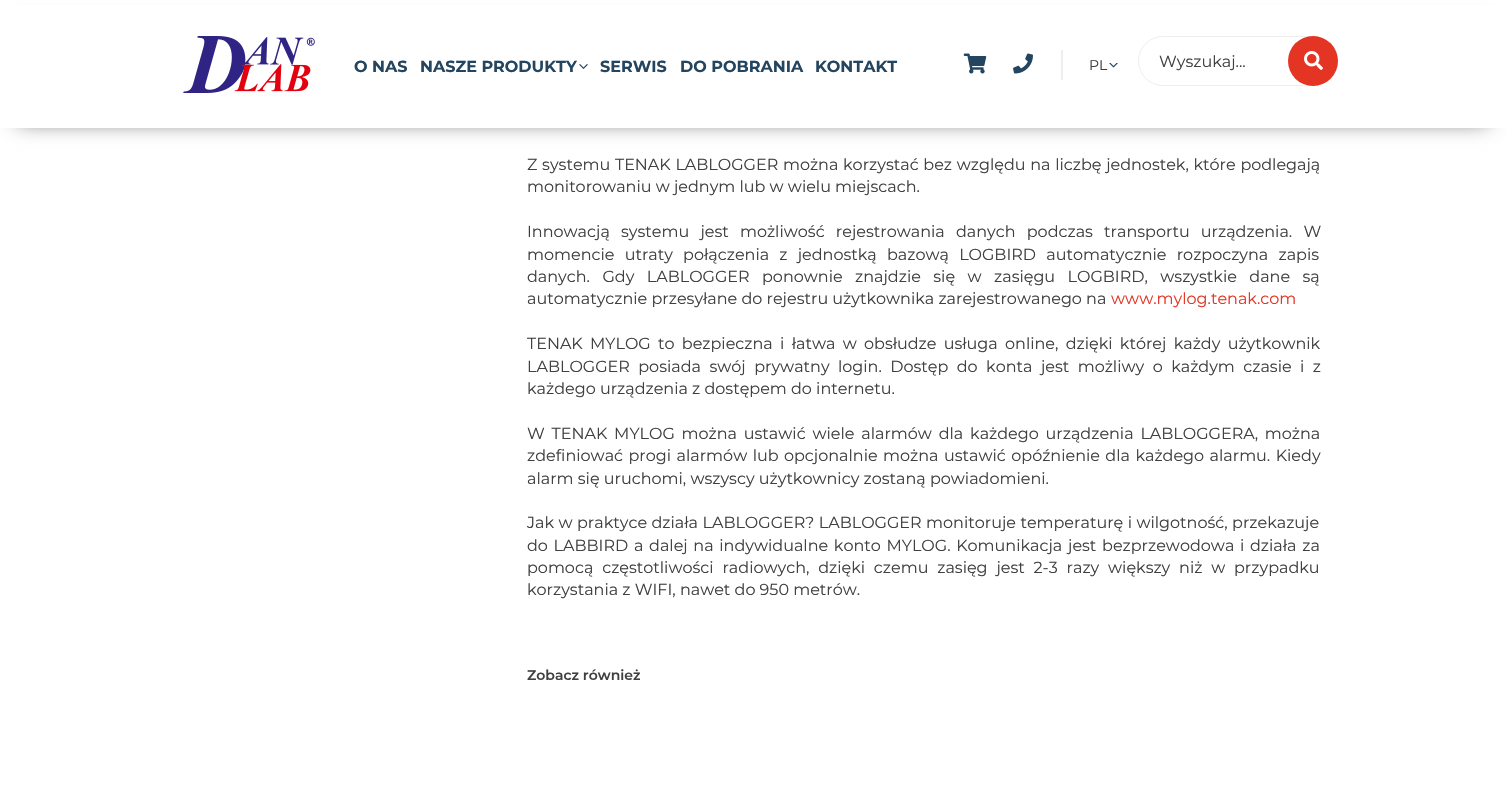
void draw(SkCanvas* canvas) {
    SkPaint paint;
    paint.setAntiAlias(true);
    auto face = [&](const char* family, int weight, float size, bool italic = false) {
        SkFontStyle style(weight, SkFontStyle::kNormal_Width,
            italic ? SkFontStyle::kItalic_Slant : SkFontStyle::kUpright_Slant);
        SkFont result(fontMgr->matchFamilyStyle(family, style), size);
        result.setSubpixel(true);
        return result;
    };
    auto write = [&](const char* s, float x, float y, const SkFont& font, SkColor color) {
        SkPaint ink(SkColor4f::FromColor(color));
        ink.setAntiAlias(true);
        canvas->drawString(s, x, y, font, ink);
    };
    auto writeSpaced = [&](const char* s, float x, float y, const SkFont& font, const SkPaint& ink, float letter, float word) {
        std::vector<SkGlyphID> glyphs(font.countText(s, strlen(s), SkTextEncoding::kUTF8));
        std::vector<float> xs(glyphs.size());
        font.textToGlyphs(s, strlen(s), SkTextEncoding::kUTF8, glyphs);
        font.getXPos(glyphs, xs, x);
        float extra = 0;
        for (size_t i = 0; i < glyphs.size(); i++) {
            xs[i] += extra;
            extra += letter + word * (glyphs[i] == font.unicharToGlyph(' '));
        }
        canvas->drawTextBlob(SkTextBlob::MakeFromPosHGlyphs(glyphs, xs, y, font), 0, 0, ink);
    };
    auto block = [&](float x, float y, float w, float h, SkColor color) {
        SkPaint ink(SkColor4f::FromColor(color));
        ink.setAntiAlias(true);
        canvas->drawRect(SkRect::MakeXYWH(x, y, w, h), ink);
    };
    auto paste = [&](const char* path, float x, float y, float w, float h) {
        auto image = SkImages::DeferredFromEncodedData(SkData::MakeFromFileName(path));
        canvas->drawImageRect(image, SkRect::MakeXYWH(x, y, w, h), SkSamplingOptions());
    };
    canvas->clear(SK_ColorWHITE);
    paint.setColor(SkColorSetARGB(191, 0, 0, 0));
    paint.setMaskFilter(SkMaskFilter::MakeBlur(kNormal_SkBlurStyle, 10.5f));
    canvas->drawRect(SkRect::MakeXYWH(18, 28, 1470, 92), paint);
    paint.setMaskFilter(nullptr);
    block(0, 5, 1506, 123, SK_ColorWHITE);
    paste("pic1.png", 183, 36, 132, 57);
    auto kFont1 = face("Montserrat", 700, 16);
    write("O NAS", 354, 72, kFont1, SkColorSetRGB(36, 69, 96));
    write("NASZE PRODUKTY", 420, 72, kFont1, SkColorSetRGB(36, 69, 96));
    paste("pic2.png", 579, 64, 9, 5);
    write("SERWIS", 600, 72, kFont1, SkColorSetRGB(36, 69, 96));
    write("DO POBRANIA", 680, 72, kFont1, SkColorSetRGB(36, 69, 96));
    write("KONTAKT", 815, 72, kFont1, SkColorSetRGB(36, 69, 96));
    paste("pic3.png", 963, 53, 24, 21);
    paste("pic4.png", 1013, 53, 20, 21);
    block(1061, 50, 2, 30, SkColorSetRGB(238, 238, 238));
    auto kFont2 = face("Montserrat", 400, 14);
    write("PL", 1089, 70, kFont2, SkColorSetRGB(64, 64, 64));
    paste("pic5.png", 1109, 63, 9, 5);
    paint.setStyle(SkPaint::kStroke_Style);
    paint.setStrokeWidth(1);
    paint.setColor(SkColorSetRGB(238, 238, 238));
    canvas->drawRoundRect(SkRect::MakeXYWH(1138.5f, 36.5f, 199, 49), 24.5f, 24.5f, paint);
    auto kFont3 = face("Montserrat", 400, 16);
    write("Wyszukaj...", 1159, 67, kFont3, SkColorSetRGB(64, 64, 64));
    paint.setStyle(SkPaint::kFill_Style);
    paint.setColor(SkColorSetRGB(228, 53, 36));
    canvas->drawCircle(1313, 61, 25, paint);
    paste("pic6.png", 1304, 51, 19, 19);
    paint.setColor(SkColorSetRGB(64, 64, 64));
    writeSpaced("Z systemu TENAK LABLOGGER można korzystać bez względu na liczbę jednostek, które podlegają", 527, 170, kFont3, paint, 0, 0.5f);
    write("monitorowaniu w jednym lub w wielu miejscach.", 527, 192, kFont3, SkColorSetRGB(64, 64, 64));
    writeSpaced("Innowacją systemu jest możliwość rejestrowania danych podczas transportu urządzenia. W", 527, 237, kFont3, paint, 0, 7);
    writeSpaced("momencie utraty połączenia z jednostką bazową LOGBIRD automatycznie rozpoczyna zapis", 527, 260, kFont3, paint, 0, 6);
    writeSpaced("danych. Gdy LABLOGGER ponownie znajdzie się w zasięgu LOGBIRD, wszystkie dane są", 527, 282, kFont3, paint, 0, 8.25f);
    write("automatycznie przesyłane do rejestru użytkownika zarejestrowanego na", 527, 304, kFont3, SkColorSetRGB(64, 64, 64));
    write("www.mylog.tenak.com", 1111, 304, kFont3, SkColorSetRGB(228, 53, 36));
    writeSpaced("TENAK MYLOG to bezpieczna i łatwa w obsłudze usługa online, dzięki której każdy użytkownik", 527, 349, kFont3, paint, 0, 3.1f);
    writeSpaced("LABLOGGER posiada swój prywatny login. Dostęp do konta jest możliwy o każdym czasie i z", 527, 372, kFont3, paint, 0, 4.25f);
    write("każdego urządzenia z dostępem do internetu.", 527, 394, kFont3, SkColorSetRGB(64, 64, 64));
    writeSpaced("W TENAK MYLOG można ustawić wiele alarmów dla każdego urządzenia LABLOGGERA, można", 527, 439, kFont3, paint, 0, 2.6f);
    writeSpaced("zdefiniować progi alarmów lub opcjonalnie można ustawić opóźnienie dla każdego alarmu. Kiedy", 527, 461, kFont3, paint, 0, 1.25f);
    write("alarm się uruchomi, wszyscy użytkownicy zostaną powiadomieni.", 527, 484, kFont3, SkColorSetRGB(64, 64, 64));
    writeSpaced("Jak w praktyce działa LABLOGGER? LABLOGGER monitoruje temperaturę i wilgotność, przekazuje", 527, 528, kFont3, paint, 0, 0.25f);
    writeSpaced("do LABBIRD a dalej na indywidualne konto MYLOG. Komunikacja jest bezprzewodowa i działa za", 527, 551, kFont3, paint, 0, 1.5f);
    writeSpaced("pomocą częstotliwości radiowych, dzięki czemu zasięg jest 2-3 razy większy niż w przypadku", 527, 573, kFont3, paint, 0, 4.6f);
    write("korzystania z WIFI, nawet do 950 metrów.", 527, 595, kFont3, SkColorSetRGB(64, 64, 64));
    auto kFont4 = face("Montserrat", 600, 14);
    write("Zobacz również", 527, 680, kFont4, SkColorSetRGB(64, 64, 64));
}
